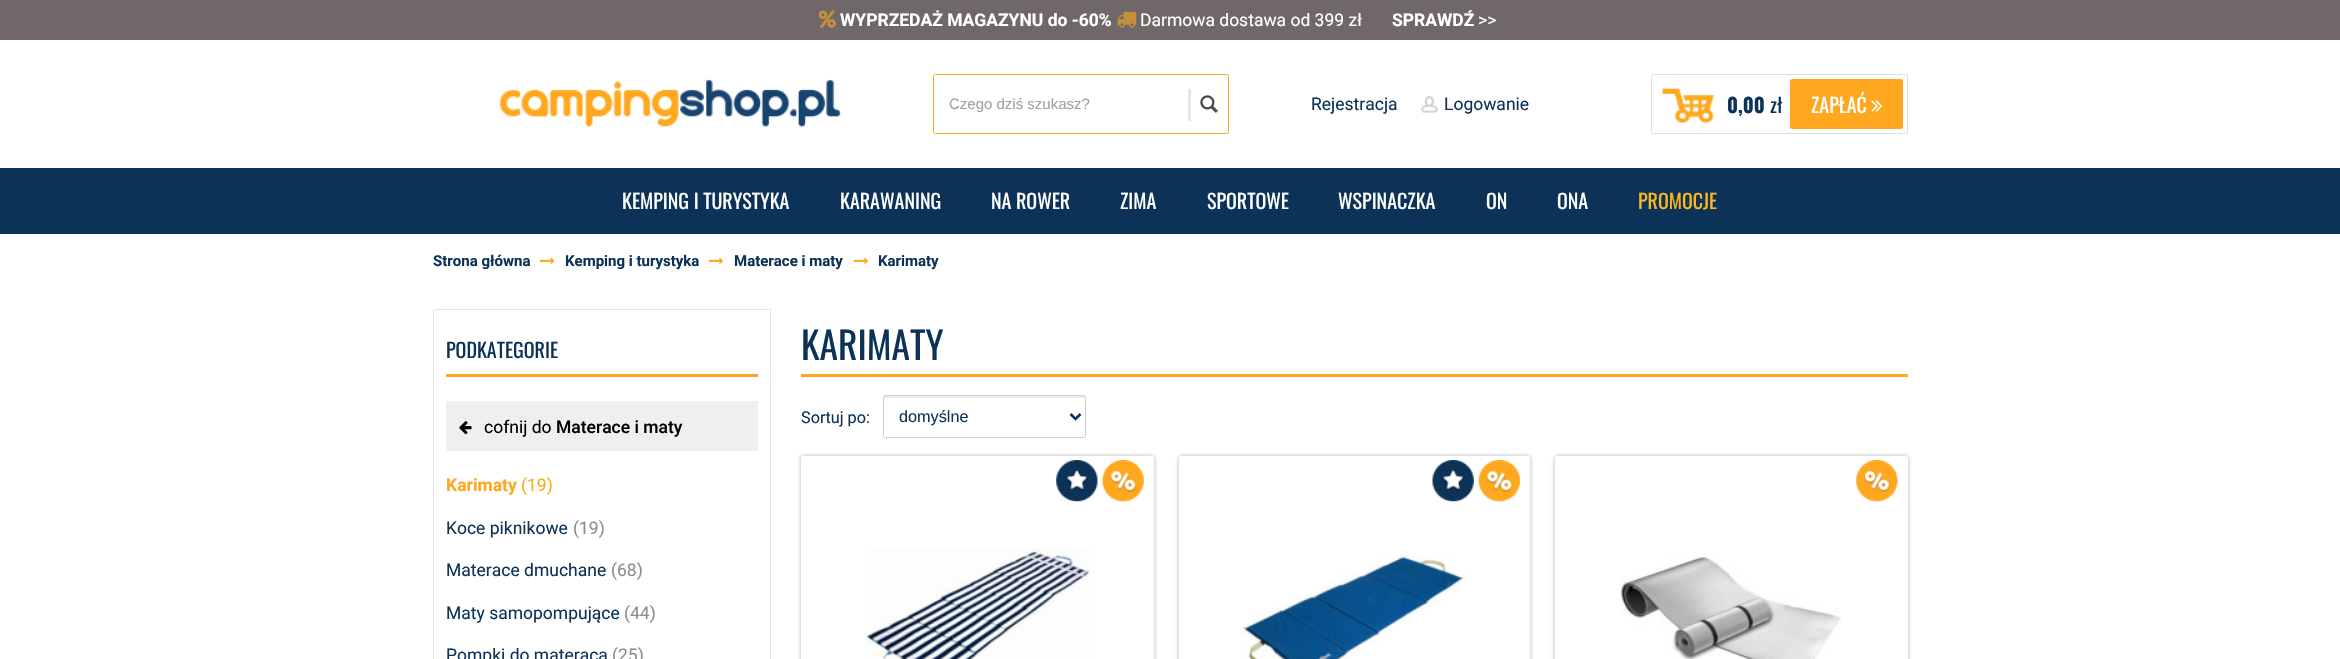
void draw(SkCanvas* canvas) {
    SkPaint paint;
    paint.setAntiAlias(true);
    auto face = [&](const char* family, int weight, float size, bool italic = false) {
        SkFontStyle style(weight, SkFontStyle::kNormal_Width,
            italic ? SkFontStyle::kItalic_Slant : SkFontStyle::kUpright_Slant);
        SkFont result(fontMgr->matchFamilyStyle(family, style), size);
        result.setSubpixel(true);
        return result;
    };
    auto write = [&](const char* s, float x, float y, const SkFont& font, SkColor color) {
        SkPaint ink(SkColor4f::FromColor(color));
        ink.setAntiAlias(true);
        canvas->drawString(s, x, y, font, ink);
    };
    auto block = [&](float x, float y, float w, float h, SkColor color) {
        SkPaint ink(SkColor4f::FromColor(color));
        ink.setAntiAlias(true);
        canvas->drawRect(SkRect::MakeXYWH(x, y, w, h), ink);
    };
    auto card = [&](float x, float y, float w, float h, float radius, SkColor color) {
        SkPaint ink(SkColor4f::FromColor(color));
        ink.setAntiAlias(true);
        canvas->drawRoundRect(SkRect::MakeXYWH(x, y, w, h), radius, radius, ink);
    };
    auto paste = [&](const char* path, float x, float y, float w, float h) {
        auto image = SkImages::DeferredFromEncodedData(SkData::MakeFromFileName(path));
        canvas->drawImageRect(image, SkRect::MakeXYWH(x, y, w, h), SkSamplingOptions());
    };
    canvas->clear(SK_ColorWHITE);
    block(0, 0, 2340, 40, SkColorSetRGB(112, 103, 104));
    paste("pic1.png", 818, 10, 18, 18);
    auto kFont1 = face("Roboto", 700, 17.5f);
    write("WYPRZEDAŻ MAGAZYNU do -60%", 840, 26, kFont1, SK_ColorWHITE);
    paste("pic2.png", 1117, 11, 20, 17);
    auto kFont2 = face("Roboto", 400, 17.5f);
    write("Darmowa dostawa od 399 zł", 1140, 26, kFont2, SK_ColorWHITE);
    write("SPRAWDŹ", 1392, 26, kFont1, SK_ColorWHITE);
    write(">>", 1478, 26, kFont2, SK_ColorWHITE);
    paste("pic3.png", 499, 79, 342, 48);
    paint.setStyle(SkPaint::kStroke_Style);
    paint.setStrokeWidth(1);
    paint.setColor(SkColorSetRGB(255, 168, 31));
    canvas->drawRoundRect(SkRect::MakeXYWH(933.5f, 74.5f, 295, 59), 2, 2, paint);
    auto kFont3 = face("Liberation Sans", 400, 15);
    write("Czego dziś szukasz?", 949, 109, kFont3, SkColorSetRGB(163, 162, 162));
    block(1188, 89, 3, 32, SkColorSetRGB(230, 230, 230));
    paste("pic4.png", 1200, 95, 18, 18);
    write("Rejestracja", 1311, 110, kFont2, SkColorSetRGB(12, 50, 88));
    paste("pic5.png", 1421, 96, 17, 17);
    write("Logowanie", 1444, 110, kFont2, SkColorSetRGB(12, 50, 88));
    paste("pic6.png", 1653, 75, 61, 48);
    paint.setColor(SkColorSetRGB(220, 220, 220));
    canvas->drawRoundRect(SkRect::MakeXYWH(1651.5f, 74.5f, 256, 59), 2, 2, paint);
    auto kFont4 = face("Oswald", 700, 20);
    write("0,00", 1727, 113, kFont4, SkColorSetRGB(12, 50, 88));
    auto kFont5 = face("Oswald", 400, 20);
    write("zł", 1770, 113, kFont5, SkColorSetRGB(12, 50, 88));
    card(1790, 79, 113, 50, 2.5f, SkColorSetRGB(255, 168, 31));
    write("ZAPŁAĆ", 1811, 113, kFont5, SK_ColorWHITE);
    paste("pic7.png", 1871, 100, 12, 12);
    block(0, 168, 2340, 66, SkColorSetRGB(12, 50, 88));
    write("KEMPING I TURYSTYKA", 622, 209, kFont5, SK_ColorWHITE);
    write("KARAWANING", 840, 209, kFont5, SK_ColorWHITE);
    write("NA ROWER", 991, 209, kFont5, SK_ColorWHITE);
    write("ZIMA", 1120, 209, kFont5, SK_ColorWHITE);
    write("SPORTOWE", 1207, 209, kFont5, SK_ColorWHITE);
    write("WSPINACZKA", 1338, 209, kFont5, SK_ColorWHITE);
    write("ON", 1486, 209, kFont5, SK_ColorWHITE);
    write("ONA", 1557, 209, kFont5, SK_ColorWHITE);
    write("PROMOCJE", 1638, 209, kFont5, SkColorSetRGB(252, 184, 33));
    auto kFont6 = face("Roboto", 700, 15);
    write("Strona główna", 433, 266, kFont6, SkColorSetRGB(12, 50, 88));
    paste("pic8.png", 540, 257, 15, 7);
    write("Kemping i turystyka", 565, 266, kFont6, SkColorSetRGB(12, 50, 88));
    paste("pic9.png", 708, 257, 16, 7);
    write("Materace i maty", 734, 266, kFont6, SkColorSetRGB(12, 50, 88));
    paste("pic9.png", 853, 257, 16, 7);
    write("Karimaty", 878, 266, kFont6, SkColorSetRGB(12, 50, 88));
    paint.setColor(SkColorSetRGB(228, 228, 228));
    canvas->drawRect(SkRect::MakeXYWH(433.5f, 309.5f, 337, 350), paint);
    block(446, 374, 312, 3, SkColorSetRGB(255, 168, 31));
    write("PODKATEGORIE", 446, 358, kFont5, SkColorSetRGB(12, 50, 88));
    block(446, 401, 312, 50, SkColorSetRGB(238, 239, 241));
    paste("pic10.png", 459, 421, 13, 14);
    write("cofnij do", 484, 433, kFont2, SK_ColorBLACK);
    auto kFont7 = face("Roboto", 500, 17.5f);
    write("Materace i maty", 556, 433, kFont7, SK_ColorBLACK);
    write("Karimaty", 446, 491, kFont1, SkColorSetRGB(255, 168, 31));
    write("(19)", 521, 491, kFont2, SkColorSetRGB(255, 168, 31));
    write("Koce piknikowe", 446, 534, kFont2, SkColorSetRGB(12, 50, 88));
    write("(19)", 573, 534, kFont2, SkColorSetRGB(140, 140, 140));
    write("Materace dmuchane", 446, 576, kFont2, SkColorSetRGB(12, 50, 88));
    write("(68)", 611, 576, kFont2, SkColorSetRGB(140, 140, 140));
    write("Maty samopompujące", 446, 619, kFont2, SkColorSetRGB(12, 50, 88));
    write("(44)", 624, 619, kFont2, SkColorSetRGB(140, 140, 140));
    write("Pompki do materaca", 446, 661, kFont2, SkColorSetRGB(12, 50, 88));
    write("(25)", 612, 661, kFont2, SkColorSetRGB(140, 140, 140));
    block(801, 374, 1107, 3, SkColorSetRGB(255, 168, 31));
    auto kFont8 = face("Oswald", 400, 37.5f);
    write("KARIMATY", 801, 360, kFont8, SkColorSetRGB(12, 50, 88));
    auto kFont9 = face("Roboto", 400, 16.25f);
    write("Sortuj po:", 801, 423, kFont9, SkColorSetRGB(12, 50, 88));
    paint.setStyle(SkPaint::kFill_Style);
    paint.setColor(SkColorSetRGB(236, 236, 236));
    canvas->drawPath(SkPathBuilder().moveTo(885, 398).lineTo(1084, 398).lineTo(1085, 399).cubicTo(1085, 398, 1085, 396, 1084, 396).lineTo(885, 396).cubicTo(884, 396, 884, 398, 884, 399).cubicTo(884, 398, 884, 398, 885, 398).close().detach(), paint);
    paint.setStyle(SkPaint::kStroke_Style);
    paint.setColor(SkColorSetRGB(204, 204, 204));
    canvas->drawRoundRect(SkRect::MakeXYWH(883.5f, 395.5f, 202, 42), 2, 2, paint);
    paint.setStrokeWidth(2.5f);
    paint.setColor(SkColorSetRGB(12, 50, 88));
    canvas->drawPath(SkPathBuilder().moveTo(1070.5f, 414).lineTo(1075.5f, 419).lineTo(1080.5f, 414).detach(), paint);
    auto kFont10 = face("Liberation Sans", 400, 16.25f);
    write("domyślne", 899, 422, kFont10, SkColorSetRGB(12, 50, 88));
    canvas->save();
    canvas->clipPath(SkPathBuilder(SkPathFillType::kEvenOdd).moveTo(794, 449).lineTo(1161, 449).lineTo(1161, 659).lineTo(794, 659).close().moveTo(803.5f, 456).lineTo(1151.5f, 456).cubicTo(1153, 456, 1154, 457, 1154, 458.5f).lineTo(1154, 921.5f).cubicTo(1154, 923, 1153, 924, 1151.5f, 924).lineTo(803.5f, 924).cubicTo(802, 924, 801, 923, 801, 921.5f).lineTo(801, 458.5f).cubicTo(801, 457, 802, 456, 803.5f, 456).close().detach(), true);
    paint.setStyle(SkPaint::kFill_Style);
    paint.setColor(SkColorSetARGB(77, 0, 0, 0));
    paint.setMaskFilter(SkMaskFilter::MakeBlur(kNormal_SkBlurStyle, 2));
    canvas->drawRoundRect(SkRect::MakeXYWH(801, 456, 353, 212), 2.5f, 2.5f, paint);
    paint.setMaskFilter(nullptr);
    canvas->restore();
    paint.setStyle(SkPaint::kStroke_Style);
    paint.setStrokeWidth(4);
    paint.setColor(SK_ColorWHITE);
    canvas->drawRoundRect(SkRect::MakeXYWH(803, 458, 349, 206), 0.5f, 0.5f, paint);
    paste("pic11.png", 1056, 460, 42, 42);
    paste("pic12.png", 1102, 460, 42, 42);
    paste("pic13.png", 865, 547, 225, 112);
    canvas->save();
    canvas->clipPath(SkPathBuilder(SkPathFillType::kEvenOdd).moveTo(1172, 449).lineTo(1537, 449).lineTo(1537, 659).lineTo(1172, 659).close().moveTo(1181.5f, 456).lineTo(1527.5f, 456).cubicTo(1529, 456, 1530, 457, 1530, 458.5f).lineTo(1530, 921.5f).cubicTo(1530, 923, 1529, 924, 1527.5f, 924).lineTo(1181.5f, 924).cubicTo(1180, 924, 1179, 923, 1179, 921.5f).lineTo(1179, 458.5f).cubicTo(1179, 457, 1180, 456, 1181.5f, 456).close().detach(), true);
    paint.setStyle(SkPaint::kFill_Style);
    paint.setColor(SkColorSetARGB(77, 0, 0, 0));
    paint.setMaskFilter(SkMaskFilter::MakeBlur(kNormal_SkBlurStyle, 2));
    canvas->drawRoundRect(SkRect::MakeXYWH(1179, 456, 351, 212), 2.5f, 2.5f, paint);
    paint.setMaskFilter(nullptr);
    canvas->restore();
    paint.setStyle(SkPaint::kStroke_Style);
    paint.setColor(SK_ColorWHITE);
    canvas->drawRoundRect(SkRect::MakeXYWH(1181, 458, 347, 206), 0.5f, 0.5f, paint);
    paste("pic14.png", 1432, 460, 42, 42);
    paste("pic15.png", 1478, 460, 42, 42);
    paste("pic16.png", 1241, 554, 225, 105);
    canvas->save();
    canvas->clipPath(SkPathBuilder(SkPathFillType::kEvenOdd).moveTo(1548, 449).lineTo(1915, 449).lineTo(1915, 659).lineTo(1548, 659).close().moveTo(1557.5f, 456).lineTo(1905.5f, 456).cubicTo(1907, 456, 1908, 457, 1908, 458.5f).lineTo(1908, 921.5f).cubicTo(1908, 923, 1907, 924, 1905.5f, 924).lineTo(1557.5f, 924).cubicTo(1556, 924, 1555, 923, 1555, 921.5f).lineTo(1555, 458.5f).cubicTo(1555, 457, 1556, 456, 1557.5f, 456).close().detach(), true);
    paint.setStyle(SkPaint::kFill_Style);
    paint.setColor(SkColorSetARGB(77, 0, 0, 0));
    paint.setMaskFilter(SkMaskFilter::MakeBlur(kNormal_SkBlurStyle, 2));
    canvas->drawRoundRect(SkRect::MakeXYWH(1555, 456, 353, 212), 2.5f, 2.5f, paint);
    paint.setMaskFilter(nullptr);
    canvas->restore();
    paint.setStyle(SkPaint::kStroke_Style);
    paint.setColor(SK_ColorWHITE);
    canvas->drawRoundRect(SkRect::MakeXYWH(1557, 458, 349, 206), 0.5f, 0.5f, paint);
    paste("pic17.png", 1856, 460, 42, 42);
    paste("pic18.png", 1620, 557, 222, 102);
}
